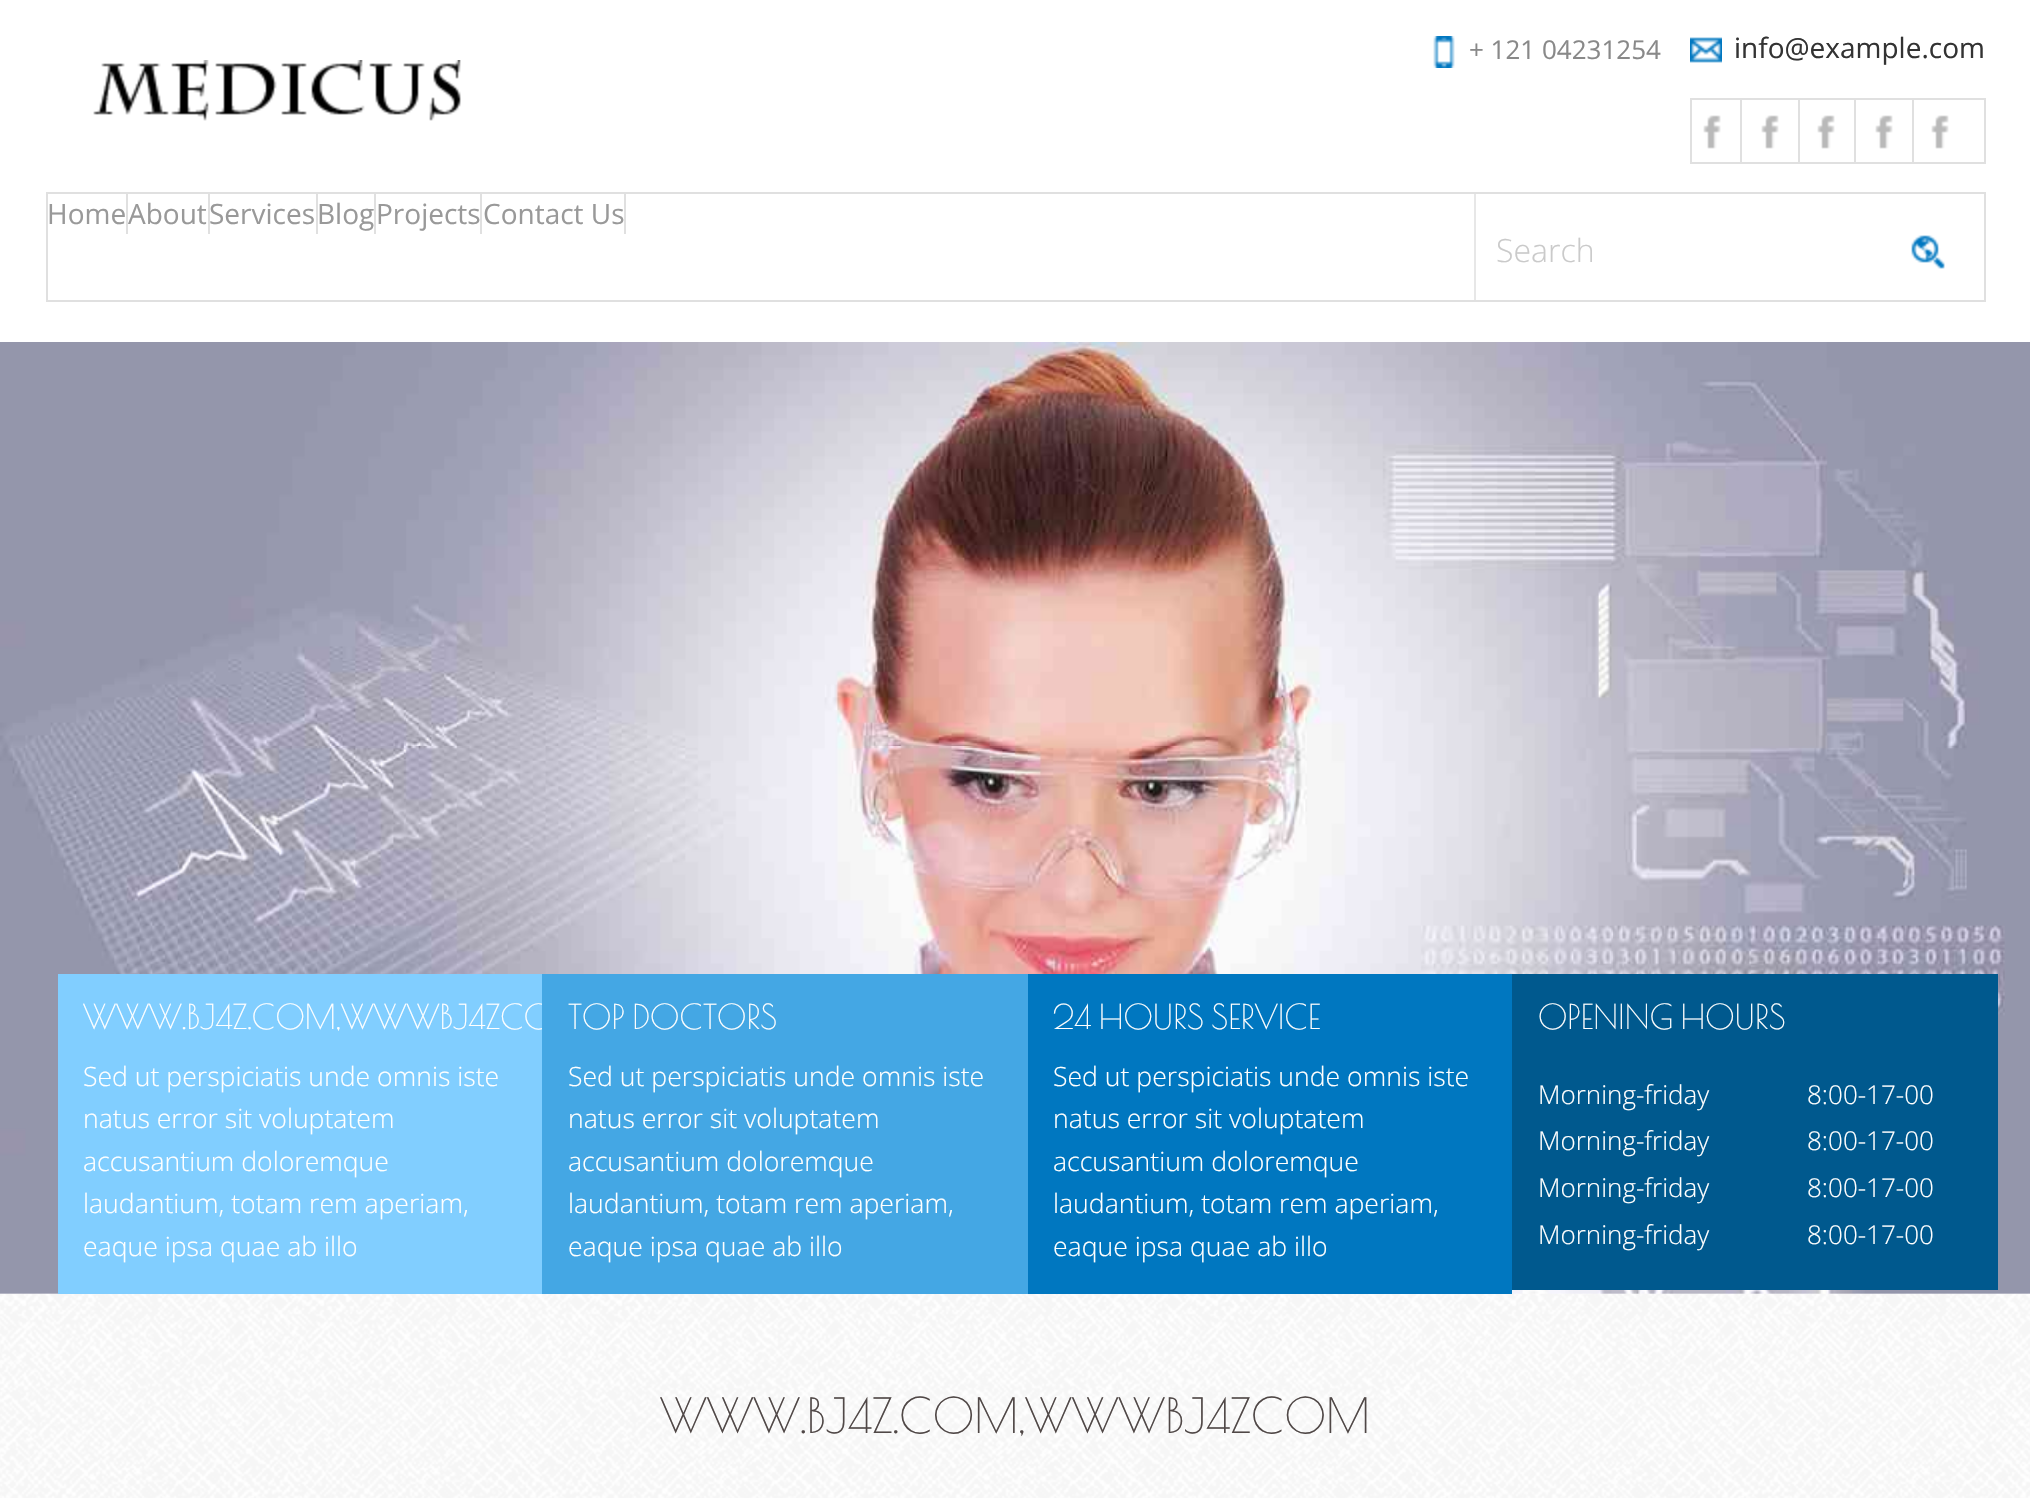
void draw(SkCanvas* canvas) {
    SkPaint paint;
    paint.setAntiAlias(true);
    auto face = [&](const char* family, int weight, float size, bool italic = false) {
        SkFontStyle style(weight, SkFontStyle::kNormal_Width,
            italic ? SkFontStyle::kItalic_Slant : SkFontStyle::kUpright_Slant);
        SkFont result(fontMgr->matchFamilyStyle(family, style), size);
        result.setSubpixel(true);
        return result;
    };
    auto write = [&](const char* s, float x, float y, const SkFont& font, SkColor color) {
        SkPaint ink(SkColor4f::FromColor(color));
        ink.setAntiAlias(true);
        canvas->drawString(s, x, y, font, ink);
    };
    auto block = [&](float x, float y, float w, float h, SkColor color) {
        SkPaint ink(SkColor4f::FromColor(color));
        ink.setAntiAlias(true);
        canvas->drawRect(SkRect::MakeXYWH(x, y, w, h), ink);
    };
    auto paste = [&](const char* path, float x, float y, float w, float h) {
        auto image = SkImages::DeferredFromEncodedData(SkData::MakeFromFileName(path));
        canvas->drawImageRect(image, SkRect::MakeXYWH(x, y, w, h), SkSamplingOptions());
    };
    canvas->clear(SK_ColorWHITE);
    paste("pic1.png", 0, 1293, 2030, 205);
    paste("pic2.png", 1433, 36, 22, 32);
    auto kFont1 = face("Open Sans", 400, 26);
    write("+ 121 04231254", 1469, 59, kFont1, SkColorSetRGB(137, 137, 137));
    paste("pic3.png", 1690, 37, 32, 26);
    auto kFont2 = face("Open Sans", 400, 28);
    write("info@example.com", 1734, 58, kFont2, SkColorSetRGB(51, 51, 51));
    paint.setStyle(SkPaint::kStroke_Style);
    paint.setStrokeWidth(2);
    paint.setColor(SkColorSetRGB(224, 224, 224));
    canvas->drawRect(SkRect::MakeXYWH(1691, 99, 294, 64), paint);
    block(1740, 100, 2, 62, SkColorSetRGB(224, 224, 224));
    paste("pic4.png", 1703, 115, 18, 34);
    block(1798, 100, 2, 62, SkColorSetRGB(224, 224, 224));
    paste("pic4.png", 1761, 115, 18, 34);
    block(1854, 100, 2, 62, SkColorSetRGB(224, 224, 224));
    paste("pic4.png", 1817, 115, 18, 34);
    block(1912, 100, 2, 62, SkColorSetRGB(224, 224, 224));
    paste("pic4.png", 1875, 115, 18, 34);
    paste("pic4.png", 1931, 115, 18, 34);
    paste("pic5.png", 93, 60, 368, 61);
    canvas->drawRect(SkRect::MakeXYWH(47, 193, 1938, 108), paint);
    block(126, 194, 2, 40, SkColorSetRGB(224, 224, 224));
    write("Home", 47, 224, kFont2, SkColorSetRGB(153, 153, 153));
    block(208, 194, 2, 40, SkColorSetRGB(224, 224, 224));
    write("About", 128, 224, kFont2, SkColorSetRGB(153, 153, 153));
    block(316, 194, 2, 40, SkColorSetRGB(224, 224, 224));
    write("Services", 209, 224, kFont2, SkColorSetRGB(153, 153, 153));
    block(374, 194, 2, 40, SkColorSetRGB(224, 224, 224));
    write("Blog", 317, 224, kFont2, SkColorSetRGB(153, 153, 153));
    block(480, 194, 2, 40, SkColorSetRGB(224, 224, 224));
    write("Projects", 376, 224, kFont2, SkColorSetRGB(153, 153, 153));
    block(624, 194, 2, 40, SkColorSetRGB(224, 224, 224));
    write("Contact Us", 483, 224, kFont2, SkColorSetRGB(153, 153, 153));
    block(1474, 194, 2, 106, SkColorSetRGB(231, 231, 231));
    auto kFont3 = face("Open Sans", 300, 32);
    write("Search", 1496, 262, kFont3, SkColorSetRGB(202, 202, 202));
    paste("pic6.png", 1911, 235, 34, 34);
    paste("pic7.png", 0, 342, 2030, 952);
    block(58, 974, 484, 320, SkColorSetRGB(129, 206, 255));
    auto kFont4 = face("Poiret One", 400, 33.6f);
    write("WWW.BJ4Z.COM,WWWBJ4ZCO", 83, 1029, kFont4, SK_ColorWHITE);
    auto kFont5 = face("Open Sans", 300, 26.6f);
    write("Sed ut perspiciatis unde omnis iste", 83, 1086, kFont5, SK_ColorWHITE);
    write("natus error sit voluptatem", 83, 1128, kFont5, SK_ColorWHITE);
    write("accusantium doloremque", 83, 1171, kFont5, SK_ColorWHITE);
    write("laudantium, totam rem aperiam,", 83, 1213, kFont5, SK_ColorWHITE);
    write("eaque ipsa quae ab illo", 83, 1256, kFont5, SK_ColorWHITE);
    block(542, 974, 486, 320, SkColorSetRGB(68, 167, 228));
    write("TOP DOCTORS", 568, 1029, kFont4, SK_ColorWHITE);
    write("Sed ut perspiciatis unde omnis iste", 568, 1086, kFont5, SK_ColorWHITE);
    write("natus error sit voluptatem", 568, 1128, kFont5, SK_ColorWHITE);
    write("accusantium doloremque", 568, 1171, kFont5, SK_ColorWHITE);
    write("laudantium, totam rem aperiam,", 568, 1213, kFont5, SK_ColorWHITE);
    write("eaque ipsa quae ab illo", 568, 1256, kFont5, SK_ColorWHITE);
    block(1028, 974, 484, 320, SkColorSetRGB(0, 119, 192));
    write("24 HOURS SERVICE", 1053, 1029, kFont4, SK_ColorWHITE);
    write("Sed ut perspiciatis unde omnis iste", 1053, 1086, kFont5, SK_ColorWHITE);
    write("natus error sit voluptatem", 1053, 1128, kFont5, SK_ColorWHITE);
    write("accusantium doloremque", 1053, 1171, kFont5, SK_ColorWHITE);
    write("laudantium, totam rem aperiam,", 1053, 1213, kFont5, SK_ColorWHITE);
    write("eaque ipsa quae ab illo", 1053, 1256, kFont5, SK_ColorWHITE);
    block(1512, 974, 486, 316, SkColorSetRGB(0, 89, 142));
    write("OPENING HOURS", 1538, 1029, kFont4, SK_ColorWHITE);
    auto kFont6 = face("Open Sans", 300, 26);
    write("Morning-friday", 1538, 1104, kFont6, SK_ColorWHITE);
    write("8:00-17-00", 1807, 1104, kFont6, SK_ColorWHITE);
    write("Morning-friday", 1538, 1150, kFont6, SK_ColorWHITE);
    write("8:00-17-00", 1807, 1150, kFont6, SK_ColorWHITE);
    write("Morning-friday", 1538, 1197, kFont6, SK_ColorWHITE);
    write("8:00-17-00", 1807, 1197, kFont6, SK_ColorWHITE);
    write("Morning-friday", 1538, 1244, kFont6, SK_ColorWHITE);
    write("8:00-17-00", 1807, 1244, kFont6, SK_ColorWHITE);
    auto kFont7 = face("Poiret One", 400, 47.6f);
    write("WWW.BJ4Z.COM,WWWBJ4ZCOM", 660, 1433, kFont7, SkColorSetRGB(80, 72, 71));
}
